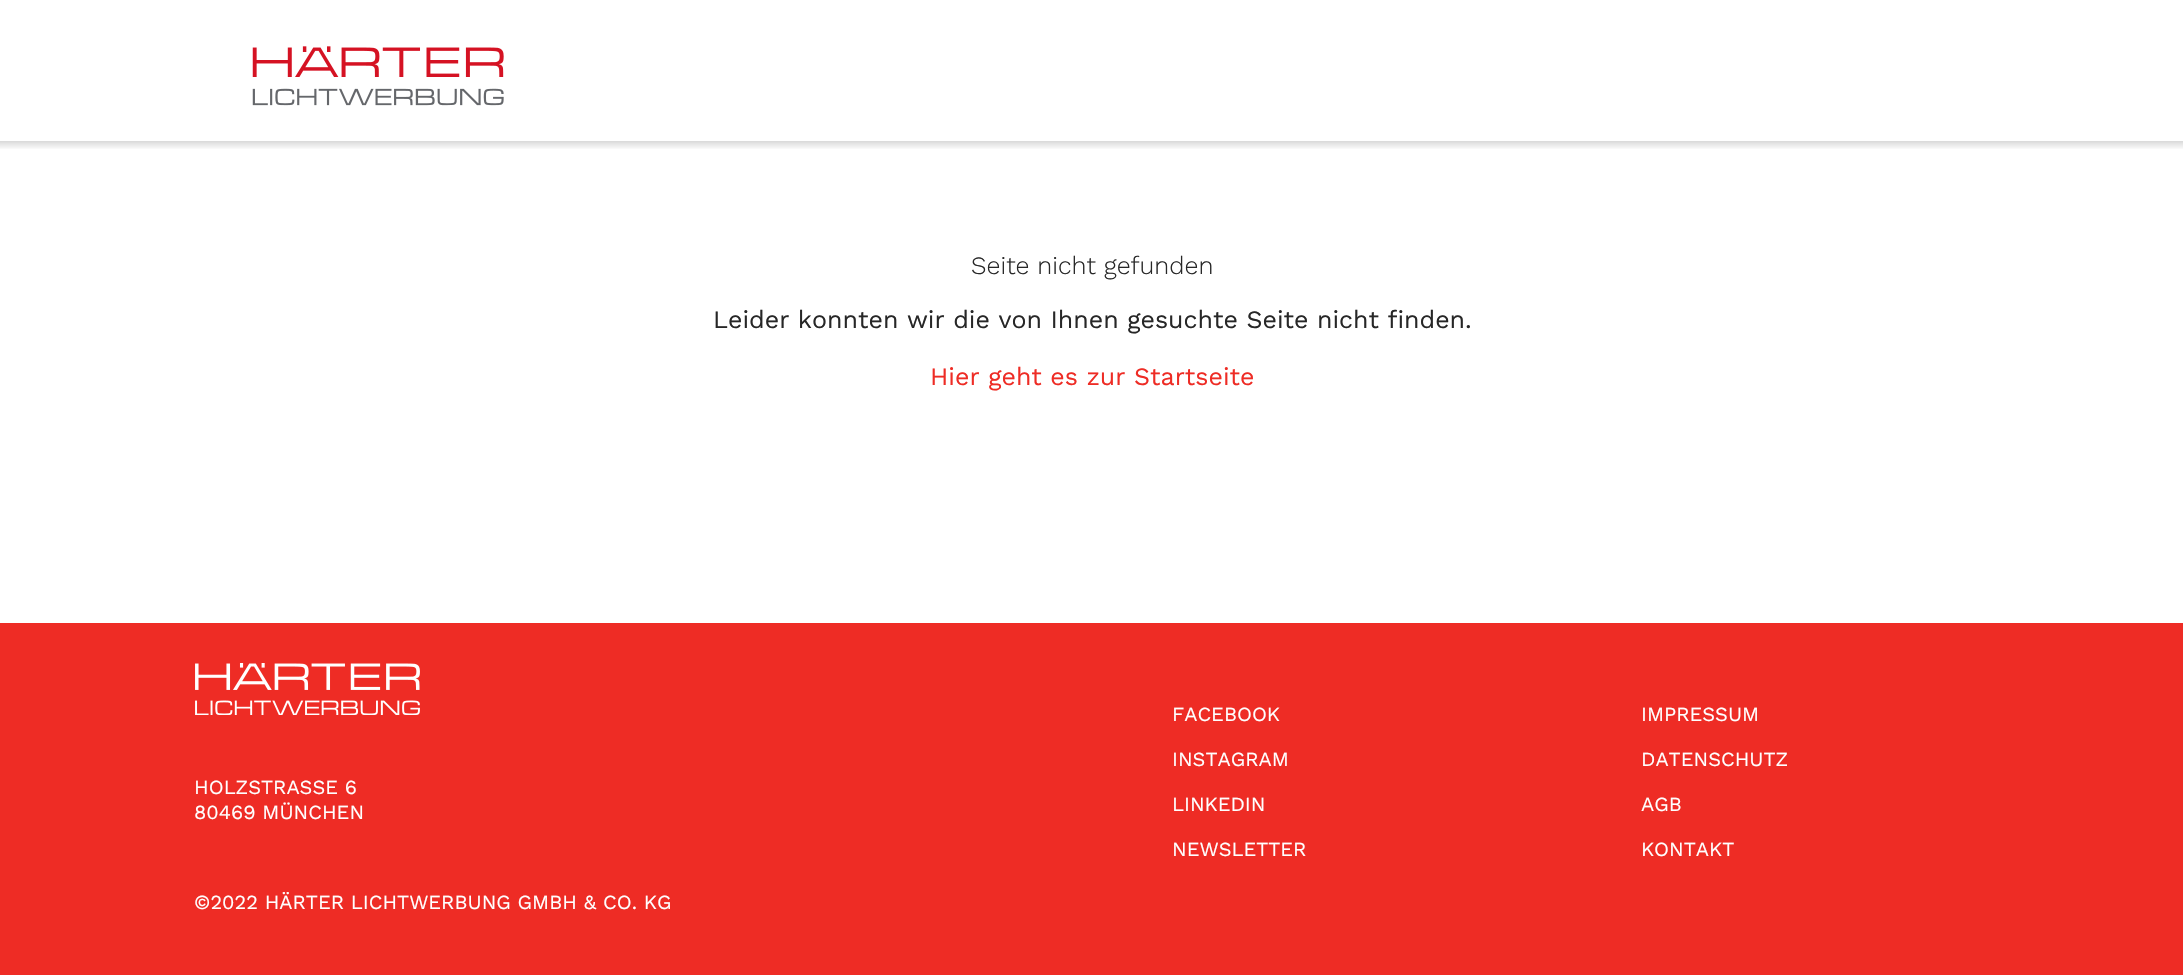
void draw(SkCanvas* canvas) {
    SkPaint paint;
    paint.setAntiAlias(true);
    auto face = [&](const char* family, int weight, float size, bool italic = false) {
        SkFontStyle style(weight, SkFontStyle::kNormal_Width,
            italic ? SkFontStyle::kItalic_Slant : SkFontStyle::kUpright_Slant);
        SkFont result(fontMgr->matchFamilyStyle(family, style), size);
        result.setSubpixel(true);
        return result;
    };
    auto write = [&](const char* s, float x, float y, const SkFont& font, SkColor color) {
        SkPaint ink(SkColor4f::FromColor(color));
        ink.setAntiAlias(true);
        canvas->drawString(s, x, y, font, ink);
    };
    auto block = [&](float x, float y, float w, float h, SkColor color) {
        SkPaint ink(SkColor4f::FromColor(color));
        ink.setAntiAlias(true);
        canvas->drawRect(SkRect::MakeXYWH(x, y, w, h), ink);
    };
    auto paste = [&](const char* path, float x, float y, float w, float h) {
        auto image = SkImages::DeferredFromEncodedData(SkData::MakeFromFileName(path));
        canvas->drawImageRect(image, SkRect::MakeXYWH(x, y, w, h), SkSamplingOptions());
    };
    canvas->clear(SK_ColorWHITE);
    paste("pic1.png", 252, 46, 252, 60);
    {
        const SkColor colors[] = {SkColorSetRGB(217, 217, 217), SK_ColorWHITE};
        const float stops[] = {0, 1};
        const SkPoint ends[] = {{1092, 141}, {1092, 150}};
        paint.setShader(SkGradientShader::MakeLinear(ends, colors, stops, 2, SkTileMode::kClamp));
        paint.setAlpha(255);
    }
    canvas->drawRect(SkRect::MakeXYWH(0, 141, 2183, 8), paint);
    auto kFont1 = face("Work Sans", 300, 25);
    write("Seite nicht gefunden", 971, 274, kFont1, SkColorSetRGB(39, 39, 39));
    auto kFont2 = face("Work Sans", 400, 25);
    write("Leider konnten wir die von Ihnen gesuchte Seite nicht finden.", 713, 328, kFont2, SkColorSetRGB(39, 39, 39));
    write("Hier geht es zur Startseite", 930, 385, kFont2, SkColorSetRGB(238, 44, 37));
    block(0, 623, 2183, 352, SkColorSetRGB(238, 44, 37));
    paste("pic2.png", 195, 663, 225, 52);
    auto kFont3 = face("Work Sans", 400, 20);
    write("HOLZSTRASSE 6", 194, 794, kFont3, SK_ColorWHITE);
    write("80469 MÜNCHEN", 194, 819, kFont3, SK_ColorWHITE);
    write("©2022 HÄRTER LICHTWERBUNG GMBH & CO. KG", 194, 909, kFont3, SK_ColorWHITE);
    write("FACEBOOK", 1172, 721, kFont3, SK_ColorWHITE);
    write("INSTAGRAM", 1172, 766, kFont3, SK_ColorWHITE);
    write("LINKEDIN", 1172, 811, kFont3, SK_ColorWHITE);
    write("NEWSLETTER", 1172, 856, kFont3, SK_ColorWHITE);
    write("IMPRESSUM", 1641, 721, kFont3, SK_ColorWHITE);
    write("DATENSCHUTZ", 1641, 766, kFont3, SK_ColorWHITE);
    write("AGB", 1641, 811, kFont3, SK_ColorWHITE);
    write("KONTAKT", 1641, 856, kFont3, SK_ColorWHITE);
}
